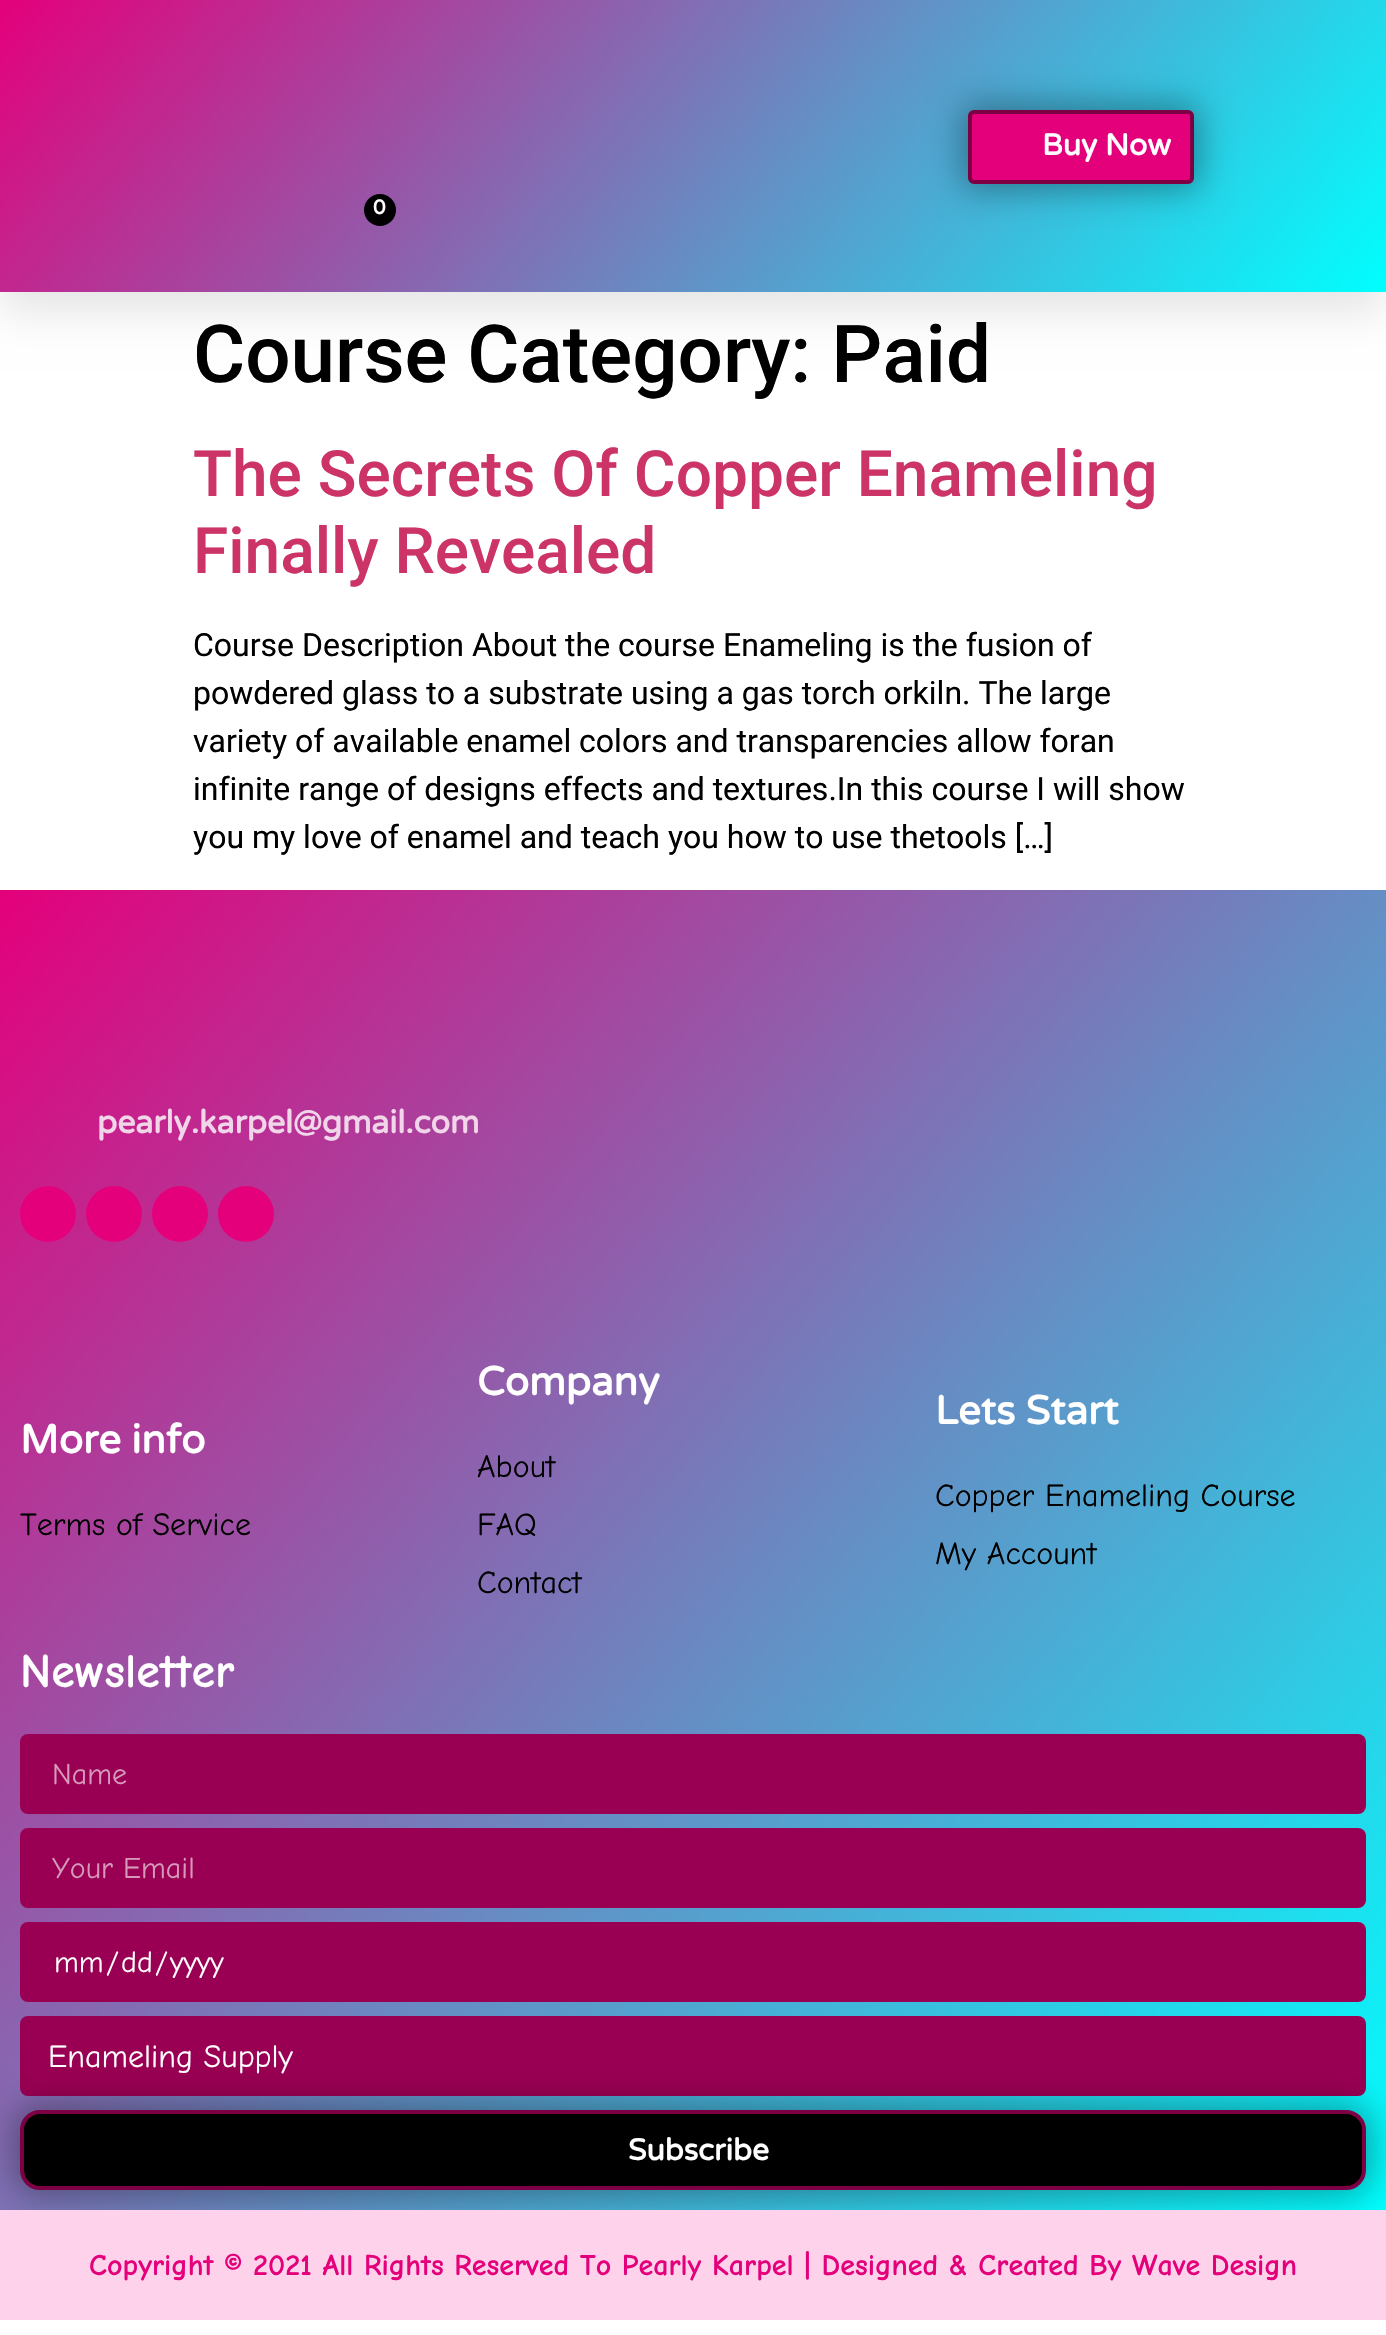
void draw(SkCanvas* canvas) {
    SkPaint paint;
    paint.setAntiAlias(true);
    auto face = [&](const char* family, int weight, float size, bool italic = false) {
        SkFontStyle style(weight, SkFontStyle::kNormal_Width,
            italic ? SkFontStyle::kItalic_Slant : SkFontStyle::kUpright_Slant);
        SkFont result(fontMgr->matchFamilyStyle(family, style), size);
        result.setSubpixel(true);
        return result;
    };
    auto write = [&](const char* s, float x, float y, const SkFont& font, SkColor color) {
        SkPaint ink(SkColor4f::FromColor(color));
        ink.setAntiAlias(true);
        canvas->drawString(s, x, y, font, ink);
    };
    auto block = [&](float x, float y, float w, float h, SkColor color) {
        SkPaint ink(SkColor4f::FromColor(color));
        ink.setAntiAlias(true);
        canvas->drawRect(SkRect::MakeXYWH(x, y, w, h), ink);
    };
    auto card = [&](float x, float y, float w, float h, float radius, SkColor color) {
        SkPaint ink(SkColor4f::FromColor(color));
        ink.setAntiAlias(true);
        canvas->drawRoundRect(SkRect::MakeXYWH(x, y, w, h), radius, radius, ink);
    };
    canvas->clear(SK_ColorWHITE);
    paint.setColor(SkColorSetARGB(26, 0, 0, 0));
    paint.setMaskFilter(SkMaskFilter::MakeBlur(kNormal_SkBlurStyle, 20));
    canvas->drawRect(SkRect::MakeXYWH(0, 20, 1386, 292), paint);
    paint.setMaskFilter(nullptr);
    {
        const SkColor colors[] = {SkColorSetRGB(228, 0, 123), SkColorSetRGB(0, 255, 255)};
        const float stops[] = {0, 1};
        const SkPoint ends[] = {{214, -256}, {1172, 548}};
        paint.setShader(SkGradientShader::MakeLinear(ends, colors, stops, 2, SkTileMode::kClamp));
        paint.setAlpha(255);
    }
    canvas->drawRect(SkRect::MakeXYWH(0, 0, 1386, 292), paint);
    paint.setShader(nullptr);
    paint.setColor(SkColorSetARGB(87, 0, 0, 0));
    paint.setMaskFilter(SkMaskFilter::MakeBlur(kNormal_SkBlurStyle, 17));
    canvas->drawRoundRect(SkRect::MakeXYWH(962, 104, 238, 86), 12, 12, paint);
    paint.setMaskFilter(nullptr);
    paint.setColor(SkColorSetRGB(228, 0, 123));
    canvas->drawRoundRect(SkRect::MakeXYWH(970, 112, 222, 70), 4, 4, paint);
    paint.setStyle(SkPaint::kStroke_Style);
    paint.setStrokeWidth(4);
    paint.setColor(SkColorSetRGB(125, 0, 68));
    canvas->drawRoundRect(SkRect::MakeXYWH(970, 112, 222, 70), 4, 4, paint);
    auto kFont1 = face("Varela Round", 700, 30);
    write("Buy Now", 1042, 155, kFont1, SK_ColorWHITE);
    paint.setStyle(SkPaint::kFill_Style);
    paint.setColor(SK_ColorBLACK);
    canvas->drawCircle(380, 210, 16, paint);
    auto kFont2 = face("Varela Round", 700, 20);
    write("0", 373, 214, kFont2, SK_ColorWHITE);
    auto kFont3 = face("Roboto", 500, 80);
    write("Course Category: Paid", 193, 382, kFont3, SK_ColorBLACK);
    auto kFont4 = face("Roboto", 500, 64);
    write("The Secrets Of Copper Enameling", 193, 496, kFont4, SkColorSetRGB(204, 51, 102));
    write("Finally Revealed", 193, 573, kFont4, SkColorSetRGB(204, 51, 102));
    auto kFont5 = face("Roboto", 400, 32);
    write("Course Description About the course Enameling is the fusion of", 193, 656, kFont5, SK_ColorBLACK);
    write("powdered glass to a substrate using a gas torch orkiln. The large", 193, 704, kFont5, SK_ColorBLACK);
    write("variety of available enamel colors and transparencies allow foran", 193, 752, kFont5, SK_ColorBLACK);
    write("infinite range of designs effects and textures.In this course I will show", 193, 800, kFont5, SK_ColorBLACK);
    write("you my love of enamel and teach you how to use thetools […]", 193, 848, kFont5, SK_ColorBLACK);
    {
        const SkColor colors[] = {SkColorSetRGB(228, 0, 123), SkColorSetRGB(0, 255, 255)};
        const float stops[] = {0, 1};
        const SkPoint ends[] = {{-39, 936}, {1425, 2164}};
        paint.setShader(SkGradientShader::MakeLinear(ends, colors, stops, 2, SkTileMode::kClamp));
        paint.setAlpha(255);
    }
    canvas->drawRect(SkRect::MakeXYWH(0, 890, 1386, 1320), paint);
    auto kFont6 = face("Varela Round", 700, 32);
    write("pearly.karpel@gmail.com", 97, 1133, kFont6, SkColorSetRGB(241, 214, 234));
    paint.setShader(nullptr);
    paint.setColor(SkColorSetRGB(228, 0, 123));
    canvas->drawCircle(48, 1214, 28, paint);
    canvas->drawCircle(114, 1214, 28, paint);
    canvas->drawCircle(180, 1214, 28, paint);
    canvas->drawCircle(246, 1214, 28, paint);
    auto kFont7 = face("Varela Round", 700, 40);
    write("More info", 20, 1453, kFont7, SK_ColorWHITE);
    auto kFont8 = face("Comic Neue", 400, 32);
    write("Terms of Service", 20, 1535, kFont8, SK_ColorBLACK);
    write("Company", 477, 1395, kFont7, SK_ColorWHITE);
    write("About", 477, 1477, kFont8, SK_ColorBLACK);
    write("FAQ", 477, 1535, kFont8, SK_ColorBLACK);
    write("Contact", 477, 1593, kFont8, SK_ColorBLACK);
    write("Lets Start", 935, 1424, kFont7, SK_ColorWHITE);
    write("Copper Enameling Course", 935, 1506, kFont8, SK_ColorBLACK);
    write("My Account", 935, 1564, kFont8, SK_ColorBLACK);
    auto kFont9 = face("Comic Neue", 700, 48);
    write("Newsletter", 20, 1687, kFont9, SK_ColorWHITE);
    card(20, 1734, 1346, 80, 8, SkColorSetRGB(153, 0, 83));
    auto kFont10 = face("Comic Neue", 400, 30);
    write("Name", 52, 1784, kFont10, SkColorSetRGB(214, 153, 186));
    card(20, 1828, 1346, 80, 8, SkColorSetRGB(153, 0, 83));
    write("Your Email", 52, 1878, kFont10, SkColorSetRGB(214, 153, 186));
    card(20, 1922, 1346, 80, 8, SkColorSetRGB(153, 0, 83));
    write("mm", 54, 1972, kFont10, SK_ColorWHITE);
    write("/", 106, 1972, kFont10, SK_ColorWHITE);
    write("dd", 121, 1972, kFont10, SK_ColorWHITE);
    write("/", 155, 1972, kFont10, SK_ColorWHITE);
    write("yyyy", 170, 1972, kFont10, SK_ColorWHITE);
    card(20, 2016, 1346, 80, 8, SkColorSetRGB(153, 0, 83));
    write("Enameling Supply", 48, 2067, kFont8, SK_ColorWHITE);
    paint.setColor(SkColorSetARGB(87, 0, 0, 0));
    paint.setMaskFilter(SkMaskFilter::MakeBlur(kNormal_SkBlurStyle, 17));
    canvas->drawRoundRect(SkRect::MakeXYWH(14, 2104, 1358, 92), 26, 26, paint);
    paint.setMaskFilter(nullptr);
    paint.setColor(SK_ColorBLACK);
    canvas->drawRoundRect(SkRect::MakeXYWH(22, 2112, 1342, 76), 18, 18, paint);
    paint.setStyle(SkPaint::kStroke_Style);
    paint.setColor(SkColorSetRGB(125, 0, 68));
    canvas->drawRoundRect(SkRect::MakeXYWH(22, 2112, 1342, 76), 18, 18, paint);
    write("Subscribe", 628, 2160, kFont1, SK_ColorWHITE);
    block(0, 2210, 1386, 110, SkColorSetRGB(255, 210, 235));
    auto kFont11 = face("Comic Neue", 700, 30);
    write("Copyright © 2021 All Rights Reserved To Pearly Karpel | Designed & Created By Wave Design", 89, 2275, kFont11, SkColorSetRGB(228, 0, 123));
}
